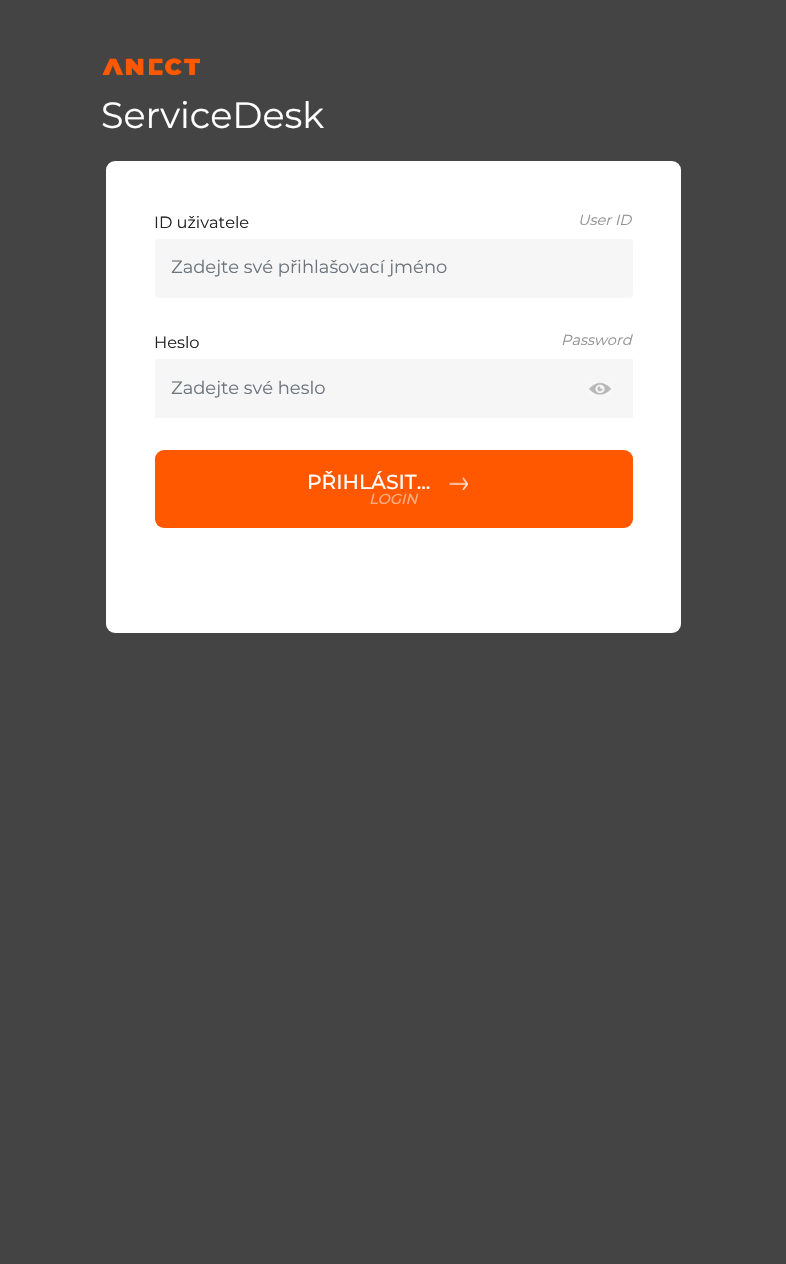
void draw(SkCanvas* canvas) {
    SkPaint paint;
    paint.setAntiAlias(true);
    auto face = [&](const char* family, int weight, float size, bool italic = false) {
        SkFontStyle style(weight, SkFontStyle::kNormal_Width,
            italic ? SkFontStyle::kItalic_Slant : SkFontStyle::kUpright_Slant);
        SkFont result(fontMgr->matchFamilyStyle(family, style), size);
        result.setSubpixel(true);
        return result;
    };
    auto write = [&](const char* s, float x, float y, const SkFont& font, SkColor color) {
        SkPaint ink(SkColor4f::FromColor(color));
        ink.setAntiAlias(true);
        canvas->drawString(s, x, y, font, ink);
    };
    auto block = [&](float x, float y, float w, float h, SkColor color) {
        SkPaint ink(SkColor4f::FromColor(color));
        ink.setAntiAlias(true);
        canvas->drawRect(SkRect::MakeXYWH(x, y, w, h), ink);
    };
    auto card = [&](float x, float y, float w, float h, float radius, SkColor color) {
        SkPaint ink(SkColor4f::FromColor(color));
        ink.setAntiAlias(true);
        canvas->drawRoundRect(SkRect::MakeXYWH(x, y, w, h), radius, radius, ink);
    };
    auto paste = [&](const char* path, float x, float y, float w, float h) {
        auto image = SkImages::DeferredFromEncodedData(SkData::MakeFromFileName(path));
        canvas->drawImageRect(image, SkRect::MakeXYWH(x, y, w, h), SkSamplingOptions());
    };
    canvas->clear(SkColorSetRGB(68, 68, 68));
    paste("pic1.png", 102, 58, 98, 17);
    auto kFont1 = face("Montserrat", 400, 36.5f);
    write("ServiceDesk", 101, 128, kFont1, SK_ColorWHITE);
    card(106, 161, 575, 472, 9, SK_ColorWHITE);
    auto kFont2 = face("Montserrat", 400, 16.25f);
    write("ID uživatele", 154, 228, kFont2, SkColorSetRGB(35, 35, 35));
    auto kFont3 = face("Montserrat", 400, 14.5f, true);
    write("User ID", 578, 225, kFont3, SkColorSetRGB(145, 145, 145));
    card(155, 239, 478, 59, 4, SkColorSetRGB(247, 246, 246));
    auto kFont4 = face("Montserrat", 400, 17.9f);
    write("Zadejte své přihlašovací jméno", 171, 273, kFont4, SkColorSetRGB(108, 117, 125));
    write("Heslo", 154, 348, kFont2, SkColorSetRGB(35, 35, 35));
    write("Password", 561, 345, kFont3, SkColorSetRGB(145, 145, 145));
    block(155, 359, 478, 59, SkColorSetRGB(247, 246, 246));
    write("Zadejte své heslo", 171, 394, kFont4, SkColorSetRGB(108, 117, 125));
    paste("pic2.png", 589, 382, 22, 13);
    card(155, 450, 478, 78, 9, SkColorSetRGB(255, 88, 0));
    auto kFont5 = face("Montserrat", 500, 20.25f);
    write("PŘIHLÁSIT...", 307, 489, kFont5, SK_ColorWHITE);
    paste("pic3.png", 449, 477, 19, 13);
    auto kFont6 = face("Montserrat", 500, 14.5f, true);
    write("LOGIN", 369, 504, kFont6, SkColorSetRGB(255, 172, 128));
}
